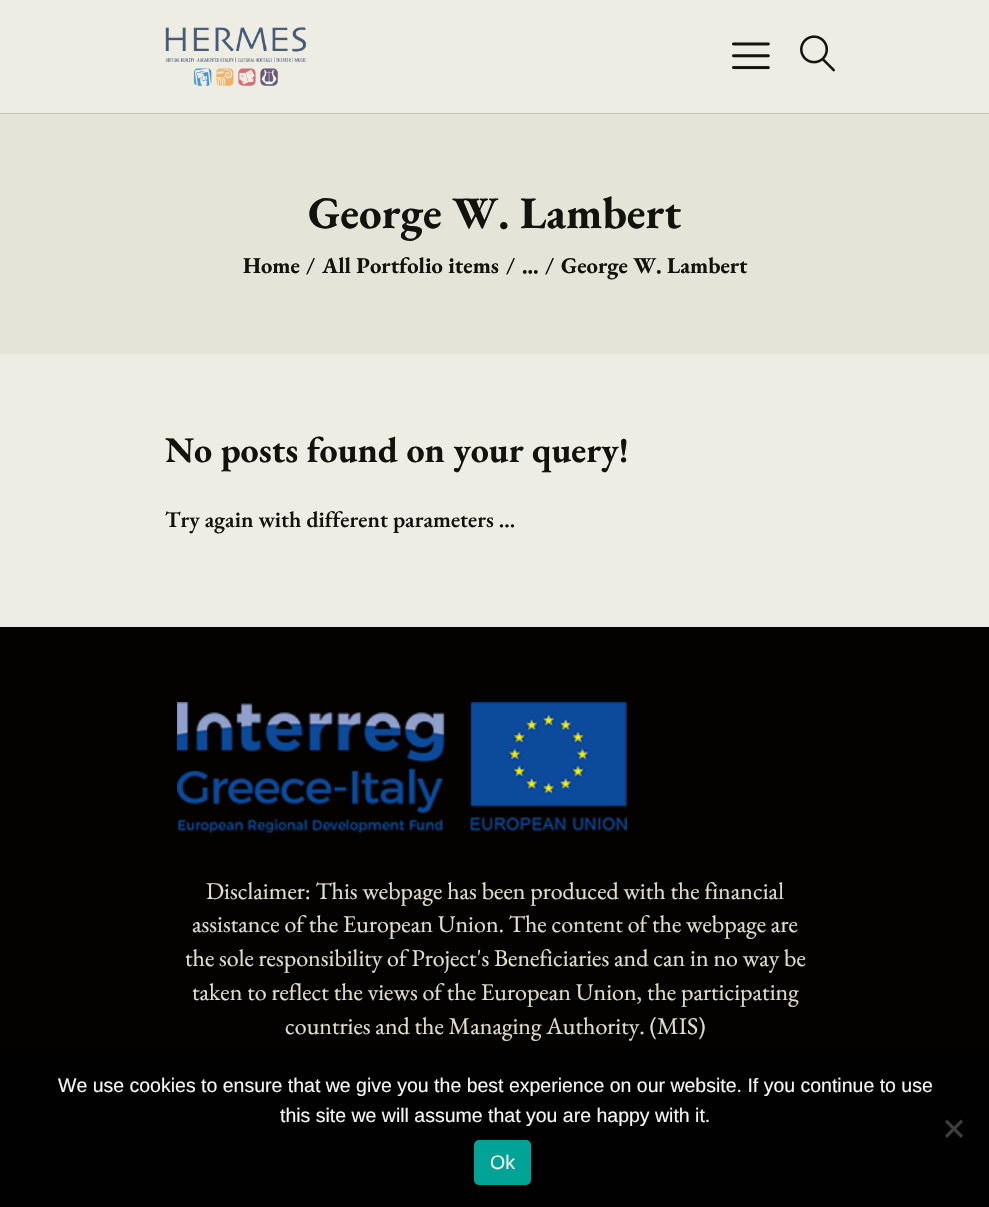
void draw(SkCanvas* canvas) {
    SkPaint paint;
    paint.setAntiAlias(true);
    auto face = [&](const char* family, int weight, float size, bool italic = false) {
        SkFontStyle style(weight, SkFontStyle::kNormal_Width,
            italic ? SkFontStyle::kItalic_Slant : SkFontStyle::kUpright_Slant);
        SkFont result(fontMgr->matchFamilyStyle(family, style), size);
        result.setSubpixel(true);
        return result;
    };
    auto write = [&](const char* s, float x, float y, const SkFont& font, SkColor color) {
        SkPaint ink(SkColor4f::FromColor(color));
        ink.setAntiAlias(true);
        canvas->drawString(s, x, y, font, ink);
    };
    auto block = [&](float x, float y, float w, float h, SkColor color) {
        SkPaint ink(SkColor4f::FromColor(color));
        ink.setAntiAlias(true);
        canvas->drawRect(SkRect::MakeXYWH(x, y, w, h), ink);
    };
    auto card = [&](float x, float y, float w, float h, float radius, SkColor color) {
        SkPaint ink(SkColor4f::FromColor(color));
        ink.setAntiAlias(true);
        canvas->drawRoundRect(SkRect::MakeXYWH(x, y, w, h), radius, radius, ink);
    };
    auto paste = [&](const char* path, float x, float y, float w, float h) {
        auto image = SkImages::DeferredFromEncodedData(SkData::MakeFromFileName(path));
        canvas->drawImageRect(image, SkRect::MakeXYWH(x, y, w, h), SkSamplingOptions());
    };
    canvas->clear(SkColorSetRGB(238, 237, 227));
    block(0, 113, 989, 1, SkColorSetRGB(194, 193, 184));
    paste("pic1.png", 165, 27, 142, 59);
    paste("pic2.png", 732, 42, 38, 28);
    paste("pic3.png", 800, 35, 35, 37);
    block(0, 114, 989, 240, SkColorSetRGB(229, 228, 216));
    auto kFont1 = face("EB Garamond", 700, 45);
    write("George W. Lambert", 308, 228, kFont1, SkColorSetRGB(19, 19, 13));
    auto kFont2 = face("EB Garamond", 700, 22.5f);
    write("Home", 243, 273, kFont2, SkColorSetRGB(19, 19, 13));
    write("/", 306, 273, kFont2, SkColorSetRGB(19, 19, 13));
    write("All Portfolio items", 322, 273, kFont2, SkColorSetRGB(19, 19, 13));
    write("/", 506, 273, kFont2, SkColorSetRGB(19, 19, 13));
    write("...", 522, 273, kFont2, SkColorSetRGB(19, 19, 13));
    write("/", 545, 273, kFont2, SkColorSetRGB(19, 19, 13));
    write("George W. Lambert", 561, 273, kFont2, SkColorSetRGB(19, 19, 13));
    auto kFont3 = face("EB Garamond", 700, 36);
    write("No posts found on your query!", 165, 462, kFont3, SkColorSetRGB(19, 19, 13));
    auto kFont4 = face("EB Garamond", 600, 22.5f);
    write("Try again with different parameters ...", 165, 527, kFont4, SkColorSetRGB(19, 19, 13));
    block(0, 627, 989, 422, SkColorSetRGB(3, 2, 1));
    paste("pic4.png", 177, 702, 450, 131);
    auto kFont5 = face("EB Garamond", 400, 24);
    write("Disclaimer: This webpage has been produced with the financial", 206, 899, kFont5, SkColorSetRGB(225, 224, 199));
    write("assistance of the European Union. The content of the webpage are", 192, 932, kFont5, SkColorSetRGB(225, 224, 199));
    write("the sole responsibility of Project's Beneficiaries and can in no way be", 185, 966, kFont5, SkColorSetRGB(225, 224, 199));
    write("taken to reflect the views of the European Union, the participating", 192, 1000, kFont5, SkColorSetRGB(225, 224, 199));
    write("countries and the Managing Authority. (MIS)", 285, 1034, kFont5, SkColorSetRGB(225, 224, 199));
    block(0, 1049, 989, 158, SkColorSetRGB(1, 1, 1));
    auto kFont6 = face("Liberation Sans", 400, 19.5f);
    write("We use cookies to ensure that we give you the best experience on our website. If you continue to use", 58, 1092, kFont6, SkColorSetRGB(246, 246, 245));
    write("this site we will assume that you are happy with it.", 280, 1122, kFont6, SkColorSetRGB(246, 246, 245));
    paint.setColor(SkColorSetRGB(62, 62, 62));
    canvas->drawPath(SkPathBuilder().moveTo(961, 1119.5f).lineTo(963, 1122).lineTo(947, 1138).lineTo(945, 1135.5f).close().detach(), paint);
    canvas->drawPath(SkPathBuilder().moveTo(945, 1122).lineTo(947, 1119.5f).lineTo(963, 1135.5f).lineTo(961, 1138).close().detach(), paint);
    card(474, 1140, 57, 45, 5, SkColorSetRGB(1, 163, 151));
    write("Ok", 490, 1169, kFont6, SkColorSetRGB(246, 246, 245));
}
